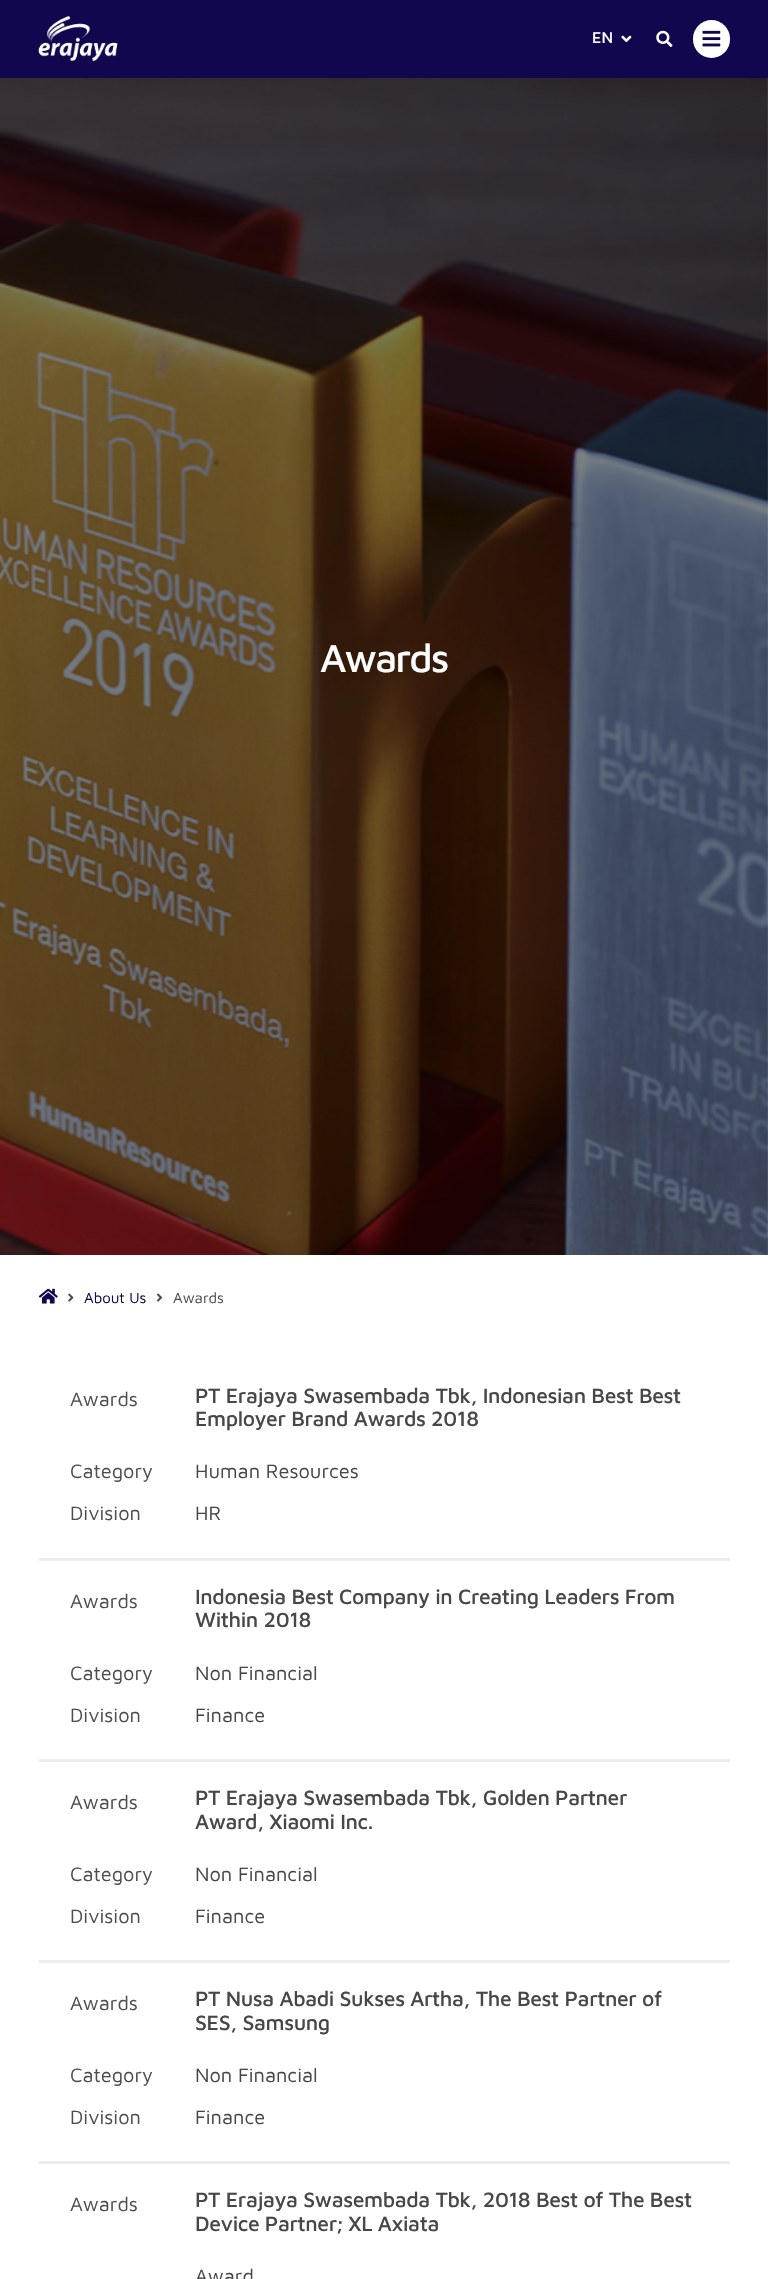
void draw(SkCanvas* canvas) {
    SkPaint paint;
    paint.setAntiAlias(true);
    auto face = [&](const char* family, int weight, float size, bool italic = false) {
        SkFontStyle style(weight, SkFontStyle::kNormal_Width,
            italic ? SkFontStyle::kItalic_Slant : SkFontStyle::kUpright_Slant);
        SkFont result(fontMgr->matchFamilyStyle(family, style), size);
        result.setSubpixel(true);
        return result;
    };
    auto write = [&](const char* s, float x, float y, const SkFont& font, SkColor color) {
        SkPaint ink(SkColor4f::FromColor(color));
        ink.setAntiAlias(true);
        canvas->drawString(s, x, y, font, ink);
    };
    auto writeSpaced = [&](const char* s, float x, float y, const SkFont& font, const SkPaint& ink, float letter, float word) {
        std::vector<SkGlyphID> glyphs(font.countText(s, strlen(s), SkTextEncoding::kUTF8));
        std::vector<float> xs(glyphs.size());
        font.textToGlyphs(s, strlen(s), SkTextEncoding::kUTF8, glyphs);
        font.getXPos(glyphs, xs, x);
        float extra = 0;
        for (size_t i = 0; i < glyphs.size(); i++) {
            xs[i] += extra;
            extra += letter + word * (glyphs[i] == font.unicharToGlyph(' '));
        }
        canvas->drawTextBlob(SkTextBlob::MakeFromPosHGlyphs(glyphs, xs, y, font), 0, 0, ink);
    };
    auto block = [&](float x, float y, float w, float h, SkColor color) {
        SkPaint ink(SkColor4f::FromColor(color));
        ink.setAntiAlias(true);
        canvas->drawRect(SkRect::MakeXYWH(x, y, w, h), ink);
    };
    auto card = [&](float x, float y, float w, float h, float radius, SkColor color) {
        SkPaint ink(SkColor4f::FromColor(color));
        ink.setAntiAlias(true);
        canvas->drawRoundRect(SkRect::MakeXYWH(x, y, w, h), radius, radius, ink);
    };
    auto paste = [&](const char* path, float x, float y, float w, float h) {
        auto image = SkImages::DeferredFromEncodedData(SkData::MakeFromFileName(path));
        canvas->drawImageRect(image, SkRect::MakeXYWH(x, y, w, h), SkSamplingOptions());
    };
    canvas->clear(SK_ColorWHITE);
    block(0, 0, 768, 78, SkColorSetRGB(17, 7, 78));
    paste("pic1.png", 38, 16, 80, 46);
    auto kFont1 = face("Maven Pro", 500, 16);
    write("EN", 592, 43, kFont1, SK_ColorWHITE);
    paste("pic2.png", 621, 35, 11, 8);
    paste("pic3.png", 656, 30, 17, 17);
    card(693, 20, 37, 38, 18.5f, SK_ColorWHITE);
    paste("pic4.png", 702, 30, 19, 17);
    paste("pic5.png", 0, 78, 768, 1177);
    auto kFont2 = face("Maven Pro", 500, 40);
    paint.setColor(SK_ColorWHITE);
    writeSpaced("Awards", 320, 672, kFont2, paint, -2, 0);
    paste("pic6.png", 38, 1288, 20, 16);
    paste("pic7.png", 68, 1293, 6, 9);
    auto kFont3 = face("Maven Pro", 400, 15);
    write("About Us", 84, 1303, kFont3, SkColorSetRGB(17, 7, 78));
    paste("pic8.png", 156, 1293, 7, 9);
    write("Awards", 173, 1303, kFont3, SkColorSetRGB(77, 77, 77));
    block(39, 1558, 691, 3, SkColorSetRGB(237, 237, 237));
    auto kFont4 = face("Maven Pro", 400, 20);
    write("Awards", 70, 1406, kFont4, SkColorSetRGB(77, 77, 77));
    auto kFont5 = face("Maven Pro", 500, 21.25f);
    paint.setColor(SkColorSetRGB(71, 71, 71));
    writeSpaced("PT Erajaya Swasembada Tbk, Indonesian Best Best", 195, 1403, kFont5, paint, -0.4f, 0);
    writeSpaced("Employer Brand Awards 2018", 195, 1426, kFont5, paint, -0.4f, 0);
    write("Category", 70, 1478, kFont4, SkColorSetRGB(77, 77, 77));
    write("Human Resources", 195, 1478, kFont4, SkColorSetRGB(71, 71, 71));
    write("Division", 70, 1520, kFont4, SkColorSetRGB(77, 77, 77));
    write("HR", 195, 1520, kFont4, SkColorSetRGB(71, 71, 71));
    block(39, 1759, 691, 3, SkColorSetRGB(237, 237, 237));
    write("Awards", 70, 1608, kFont4, SkColorSetRGB(77, 77, 77));
    writeSpaced("Indonesia Best Company in Creating Leaders From", 195, 1604, kFont5, paint, -0.4f, 0);
    writeSpaced("Within 2018", 195, 1627, kFont5, paint, -0.4f, 0);
    write("Category", 70, 1680, kFont4, SkColorSetRGB(77, 77, 77));
    write("Non Financial", 195, 1680, kFont4, SkColorSetRGB(71, 71, 71));
    write("Division", 70, 1722, kFont4, SkColorSetRGB(77, 77, 77));
    write("Finance", 195, 1722, kFont4, SkColorSetRGB(71, 71, 71));
    block(39, 1960, 691, 3, SkColorSetRGB(237, 237, 237));
    write("Awards", 70, 1809, kFont4, SkColorSetRGB(77, 77, 77));
    writeSpaced("PT Erajaya Swasembada Tbk, Golden Partner", 195, 1805, kFont5, paint, -0.4f, 0);
    writeSpaced("Award, Xiaomi Inc.", 195, 1829, kFont5, paint, -0.4f, 0);
    write("Category", 70, 1881, kFont4, SkColorSetRGB(77, 77, 77));
    write("Non Financial", 195, 1881, kFont4, SkColorSetRGB(71, 71, 71));
    write("Division", 70, 1923, kFont4, SkColorSetRGB(77, 77, 77));
    write("Finance", 195, 1923, kFont4, SkColorSetRGB(71, 71, 71));
    block(39, 2161, 691, 3, SkColorSetRGB(237, 237, 237));
    write("Awards", 70, 2010, kFont4, SkColorSetRGB(77, 77, 77));
    writeSpaced("PT Nusa Abadi Sukses Artha, The Best Partner of", 195, 2006, kFont5, paint, -0.4f, 0);
    writeSpaced("SES, Samsung", 195, 2030, kFont5, paint, -0.4f, 0);
    write("Category", 70, 2082, kFont4, SkColorSetRGB(77, 77, 77));
    write("Non Financial", 195, 2082, kFont4, SkColorSetRGB(71, 71, 71));
    write("Division", 70, 2124, kFont4, SkColorSetRGB(77, 77, 77));
    write("Finance", 195, 2124, kFont4, SkColorSetRGB(71, 71, 71));
    write("Awards", 70, 2211, kFont4, SkColorSetRGB(77, 77, 77));
    writeSpaced("PT Erajaya Swasembada Tbk, 2018 Best of The Best", 195, 2207, kFont5, paint, -0.4f, 0);
    writeSpaced("Device Partner; XL Axiata", 195, 2231, kFont5, paint, -0.4f, 0);
    write("Award", 195, 2283, kFont4, SkColorSetRGB(71, 71, 71));
}
